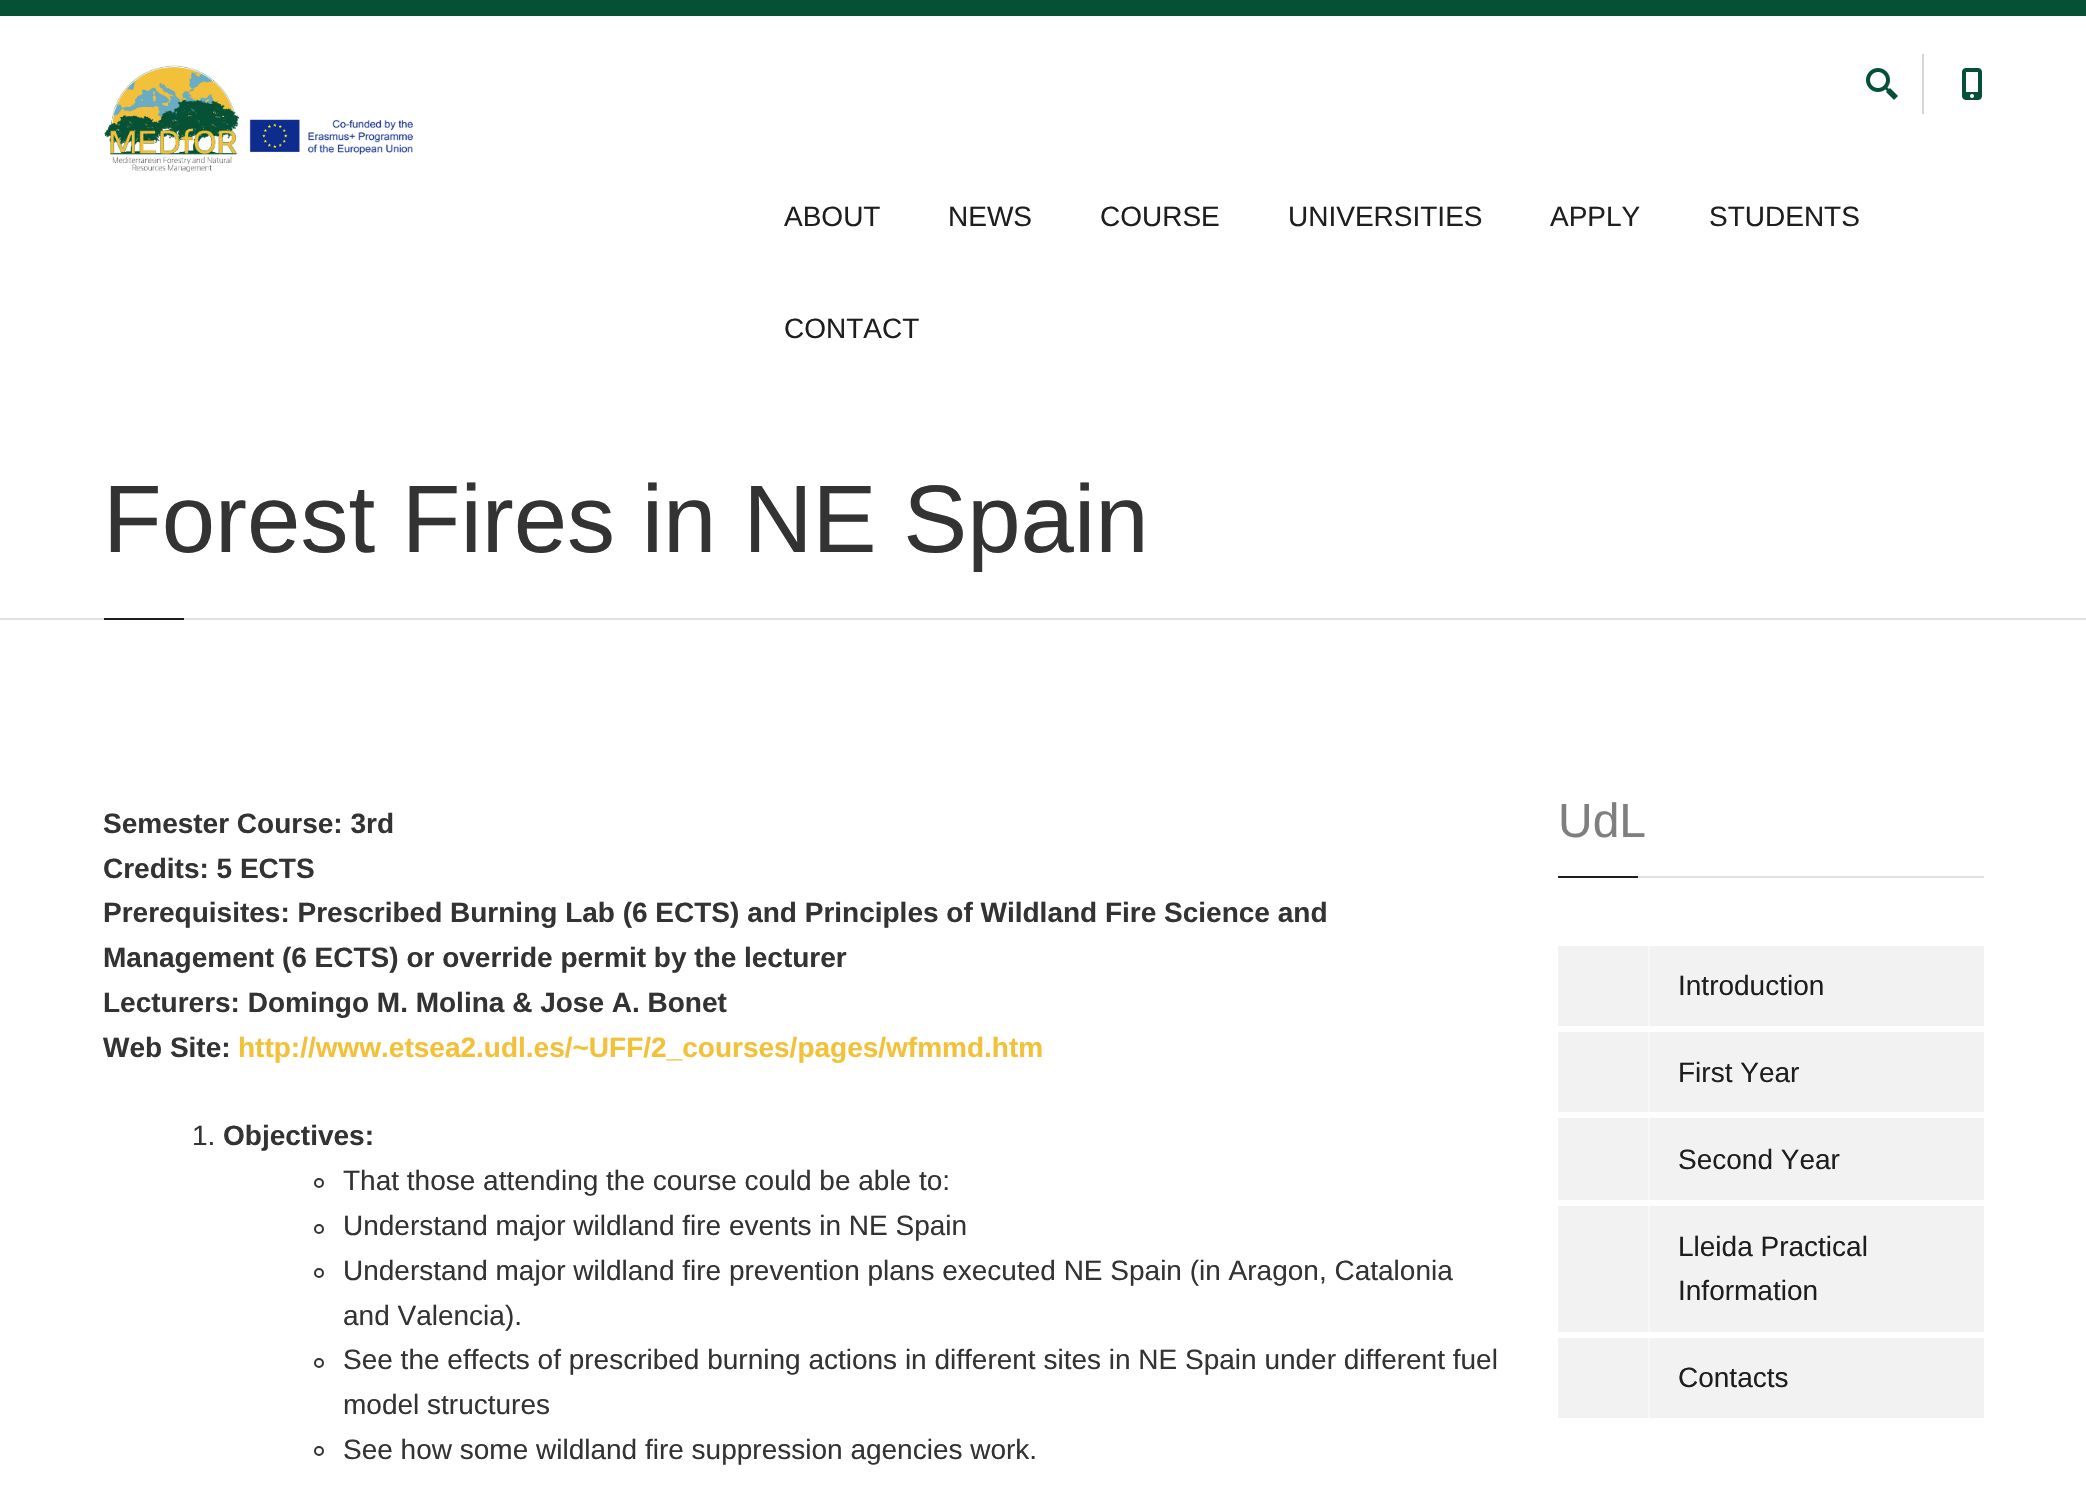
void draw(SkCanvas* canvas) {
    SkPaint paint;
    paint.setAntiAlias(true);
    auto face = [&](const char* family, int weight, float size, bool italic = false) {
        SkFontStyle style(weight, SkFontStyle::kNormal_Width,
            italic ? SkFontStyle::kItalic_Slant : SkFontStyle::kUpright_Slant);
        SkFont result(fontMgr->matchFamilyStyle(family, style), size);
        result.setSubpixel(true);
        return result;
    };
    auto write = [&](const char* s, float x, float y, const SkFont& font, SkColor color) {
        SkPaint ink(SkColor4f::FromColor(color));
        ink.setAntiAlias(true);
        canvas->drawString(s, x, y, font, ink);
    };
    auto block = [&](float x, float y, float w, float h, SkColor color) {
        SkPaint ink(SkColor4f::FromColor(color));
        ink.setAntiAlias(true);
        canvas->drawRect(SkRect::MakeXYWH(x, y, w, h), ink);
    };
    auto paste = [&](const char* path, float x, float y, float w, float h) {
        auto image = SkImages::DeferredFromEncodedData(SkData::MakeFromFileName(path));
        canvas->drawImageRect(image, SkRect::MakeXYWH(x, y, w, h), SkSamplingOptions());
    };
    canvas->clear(SK_ColorWHITE);
    block(0, 0, 2086, 16, SkColorSetRGB(6, 81, 53));
    paste("pic1.png", 104, 65, 309, 107);
    block(1922, 54, 2, 60, SkColorSetRGB(214, 214, 214));
    paste("pic2.png", 1866, 68, 32, 32);
    paste("pic3.png", 1962, 68, 20, 32);
    auto kFont1 = face("Liberation Sans", 400, 28);
    write("ABOUT", 784, 226, kFont1, SkColorSetRGB(30, 30, 30));
    write("NEWS", 948, 226, kFont1, SkColorSetRGB(30, 30, 30));
    write("COURSE", 1100, 226, kFont1, SkColorSetRGB(30, 30, 30));
    write("UNIVERSITIES", 1288, 226, kFont1, SkColorSetRGB(30, 30, 30));
    write("APPLY", 1550, 226, kFont1, SkColorSetRGB(30, 30, 30));
    write("STUDENTS", 1709, 226, kFont1, SkColorSetRGB(30, 30, 30));
    write("CONTACT", 784, 338, kFont1, SkColorSetRGB(30, 30, 30));
    block(0, 618, 2086, 2, SkColorSetRGB(225, 225, 225));
    auto kFont2 = face("Liberation Sans", 400, 96);
    write("Forest Fires in NE Spain", 103, 552, kFont2, SkColorSetRGB(51, 51, 51));
    block(104, 618, 80, 2, SkColorSetRGB(30, 30, 30));
    auto kFont3 = face("Liberation Sans", 700, 28);
    write("Semester Course: 3rd", 103, 833, kFont3, SkColorSetRGB(51, 51, 51));
    write("Credits: 5 ECTS", 103, 878, kFont3, SkColorSetRGB(51, 51, 51));
    write("Prerequisites: Prescribed Burning Lab (6 ECTS) and Principles of Wildland Fire Science and", 103, 922, kFont3, SkColorSetRGB(51, 51, 51));
    write("Management (6 ECTS) or override permit by the lecturer", 103, 967, kFont3, SkColorSetRGB(51, 51, 51));
    write("Lecturers: Domingo M. Molina & Jose A. Bonet", 103, 1012, kFont3, SkColorSetRGB(51, 51, 51));
    write("Web Site:", 103, 1057, kFont3, SkColorSetRGB(51, 51, 51));
    write("http://www.etsea2.udl.es/~UFF/2_courses/pages/wfmmd.htm", 238, 1057, kFont3, SkColorSetRGB(242, 193, 57));
    write("1.", 192, 1145, kFont1, SkColorSetRGB(51, 51, 51));
    write("Objectives:", 223, 1145, kFont3, SkColorSetRGB(51, 51, 51));
    paint.setStyle(SkPaint::kStroke_Style);
    paint.setStrokeWidth(2);
    paint.setColor(SkColorSetRGB(51, 51, 51));
    canvas->drawCircle(319, 1183, 4, paint);
    write("That those attending the course could be able to:", 343, 1190, kFont1, SkColorSetRGB(51, 51, 51));
    canvas->drawCircle(319, 1229, 4, paint);
    write("Understand major wildland fire events in NE Spain", 343, 1235, kFont1, SkColorSetRGB(51, 51, 51));
    canvas->drawCircle(319, 1273, 4, paint);
    write("Understand major wildland fire prevention plans executed NE Spain (in Aragon, Catalonia", 343, 1280, kFont1, SkColorSetRGB(51, 51, 51));
    write("and Valencia).", 343, 1325, kFont1, SkColorSetRGB(51, 51, 51));
    canvas->drawCircle(319, 1363, 4, paint);
    write("See the effects of prescribed burning actions in different sites in NE Spain under different fuel", 343, 1369, kFont1, SkColorSetRGB(51, 51, 51));
    write("model structures", 343, 1414, kFont1, SkColorSetRGB(51, 51, 51));
    canvas->drawCircle(319, 1451, 4, paint);
    write("See how some wildland fire suppression agencies work.", 343, 1459, kFont1, SkColorSetRGB(51, 51, 51));
    block(1638, 876, 346, 2, SkColorSetRGB(225, 225, 225));
    auto kFont4 = face("Liberation Sans", 400, 48);
    write("UdL", 1558, 837, kFont4, SkColorSetRGB(127, 127, 127));
    block(1558, 876, 80, 2, SkColorSetRGB(30, 30, 30));
    block(1558, 946, 426, 80, SkColorSetRGB(242, 242, 242));
    block(1648, 946, 2, 80, SkColorSetRGB(247, 247, 247));
    write("Introduction", 1678, 995, kFont1, SkColorSetRGB(30, 30, 30));
    block(1558, 1032, 426, 80, SkColorSetRGB(242, 242, 242));
    block(1648, 1032, 2, 80, SkColorSetRGB(247, 247, 247));
    write("First Year", 1678, 1082, kFont1, SkColorSetRGB(30, 30, 30));
    block(1558, 1118, 426, 82, SkColorSetRGB(242, 242, 242));
    block(1648, 1118, 2, 82, SkColorSetRGB(247, 247, 247));
    write("Second Year", 1678, 1169, kFont1, SkColorSetRGB(30, 30, 30));
    block(1558, 1206, 426, 126, SkColorSetRGB(242, 242, 242));
    block(1648, 1206, 2, 126, SkColorSetRGB(247, 247, 247));
    write("Lleida Practical", 1678, 1256, kFont1, SkColorSetRGB(30, 30, 30));
    write("Information", 1678, 1300, kFont1, SkColorSetRGB(30, 30, 30));
    block(1558, 1338, 426, 80, SkColorSetRGB(242, 242, 242));
    block(1648, 1338, 2, 80, SkColorSetRGB(247, 247, 247));
    write("Contacts", 1678, 1387, kFont1, SkColorSetRGB(30, 30, 30));
}
